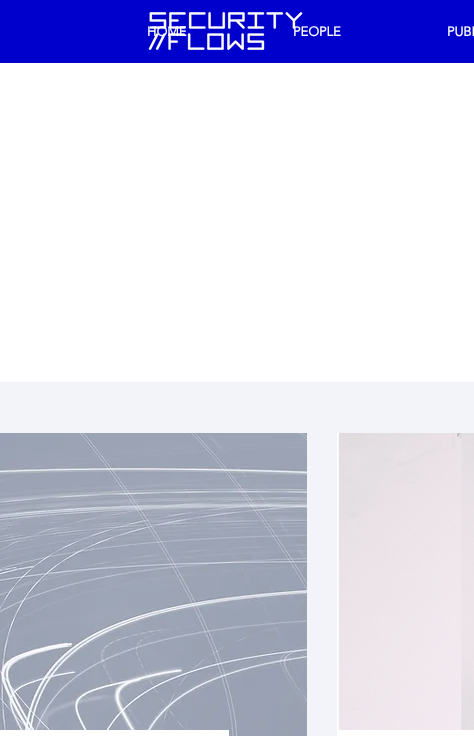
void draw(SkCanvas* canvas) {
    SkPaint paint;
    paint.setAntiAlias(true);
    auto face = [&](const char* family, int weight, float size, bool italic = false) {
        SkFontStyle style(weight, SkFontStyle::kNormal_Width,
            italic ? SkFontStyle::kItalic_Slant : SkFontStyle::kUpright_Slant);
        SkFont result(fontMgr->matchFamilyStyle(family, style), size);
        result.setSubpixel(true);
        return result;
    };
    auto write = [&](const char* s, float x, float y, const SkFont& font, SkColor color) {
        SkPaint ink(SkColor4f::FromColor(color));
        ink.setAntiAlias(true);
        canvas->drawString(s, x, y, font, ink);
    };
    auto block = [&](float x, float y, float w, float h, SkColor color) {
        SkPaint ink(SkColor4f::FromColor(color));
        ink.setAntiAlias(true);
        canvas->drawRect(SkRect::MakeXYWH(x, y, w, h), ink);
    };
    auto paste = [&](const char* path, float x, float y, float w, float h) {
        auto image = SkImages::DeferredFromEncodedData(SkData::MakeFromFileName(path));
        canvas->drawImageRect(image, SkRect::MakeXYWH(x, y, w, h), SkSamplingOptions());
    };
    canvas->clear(SK_ColorWHITE);
    block(0, 0, 474, 63, SkColorSetRGB(0, 0, 204));
    paste("pic1.png", 148, 12, 155, 39);
    auto kFont1 = face("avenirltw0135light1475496", 700, 13);
    write("HOME", 147, 36, kFont1, SK_ColorWHITE);
    write("PEOPLE", 293, 36, kFont1, SK_ColorWHITE);
    write("PUBL", 447, 36, kFont1, SK_ColorWHITE);
    block(0, 382, 474, 354, SkColorSetRGB(242, 244, 250));
    paste("pic2.png", 0, 433, 307, 303);
    block(0, 730, 229, 6, SK_ColorWHITE);
    block(337, 433, 137, 297, SkColorSetRGB(253, 253, 254));
    paste("pic3.png", 338, 433, 136, 297);
    block(337, 730, 137, 6, SK_ColorWHITE);
}
